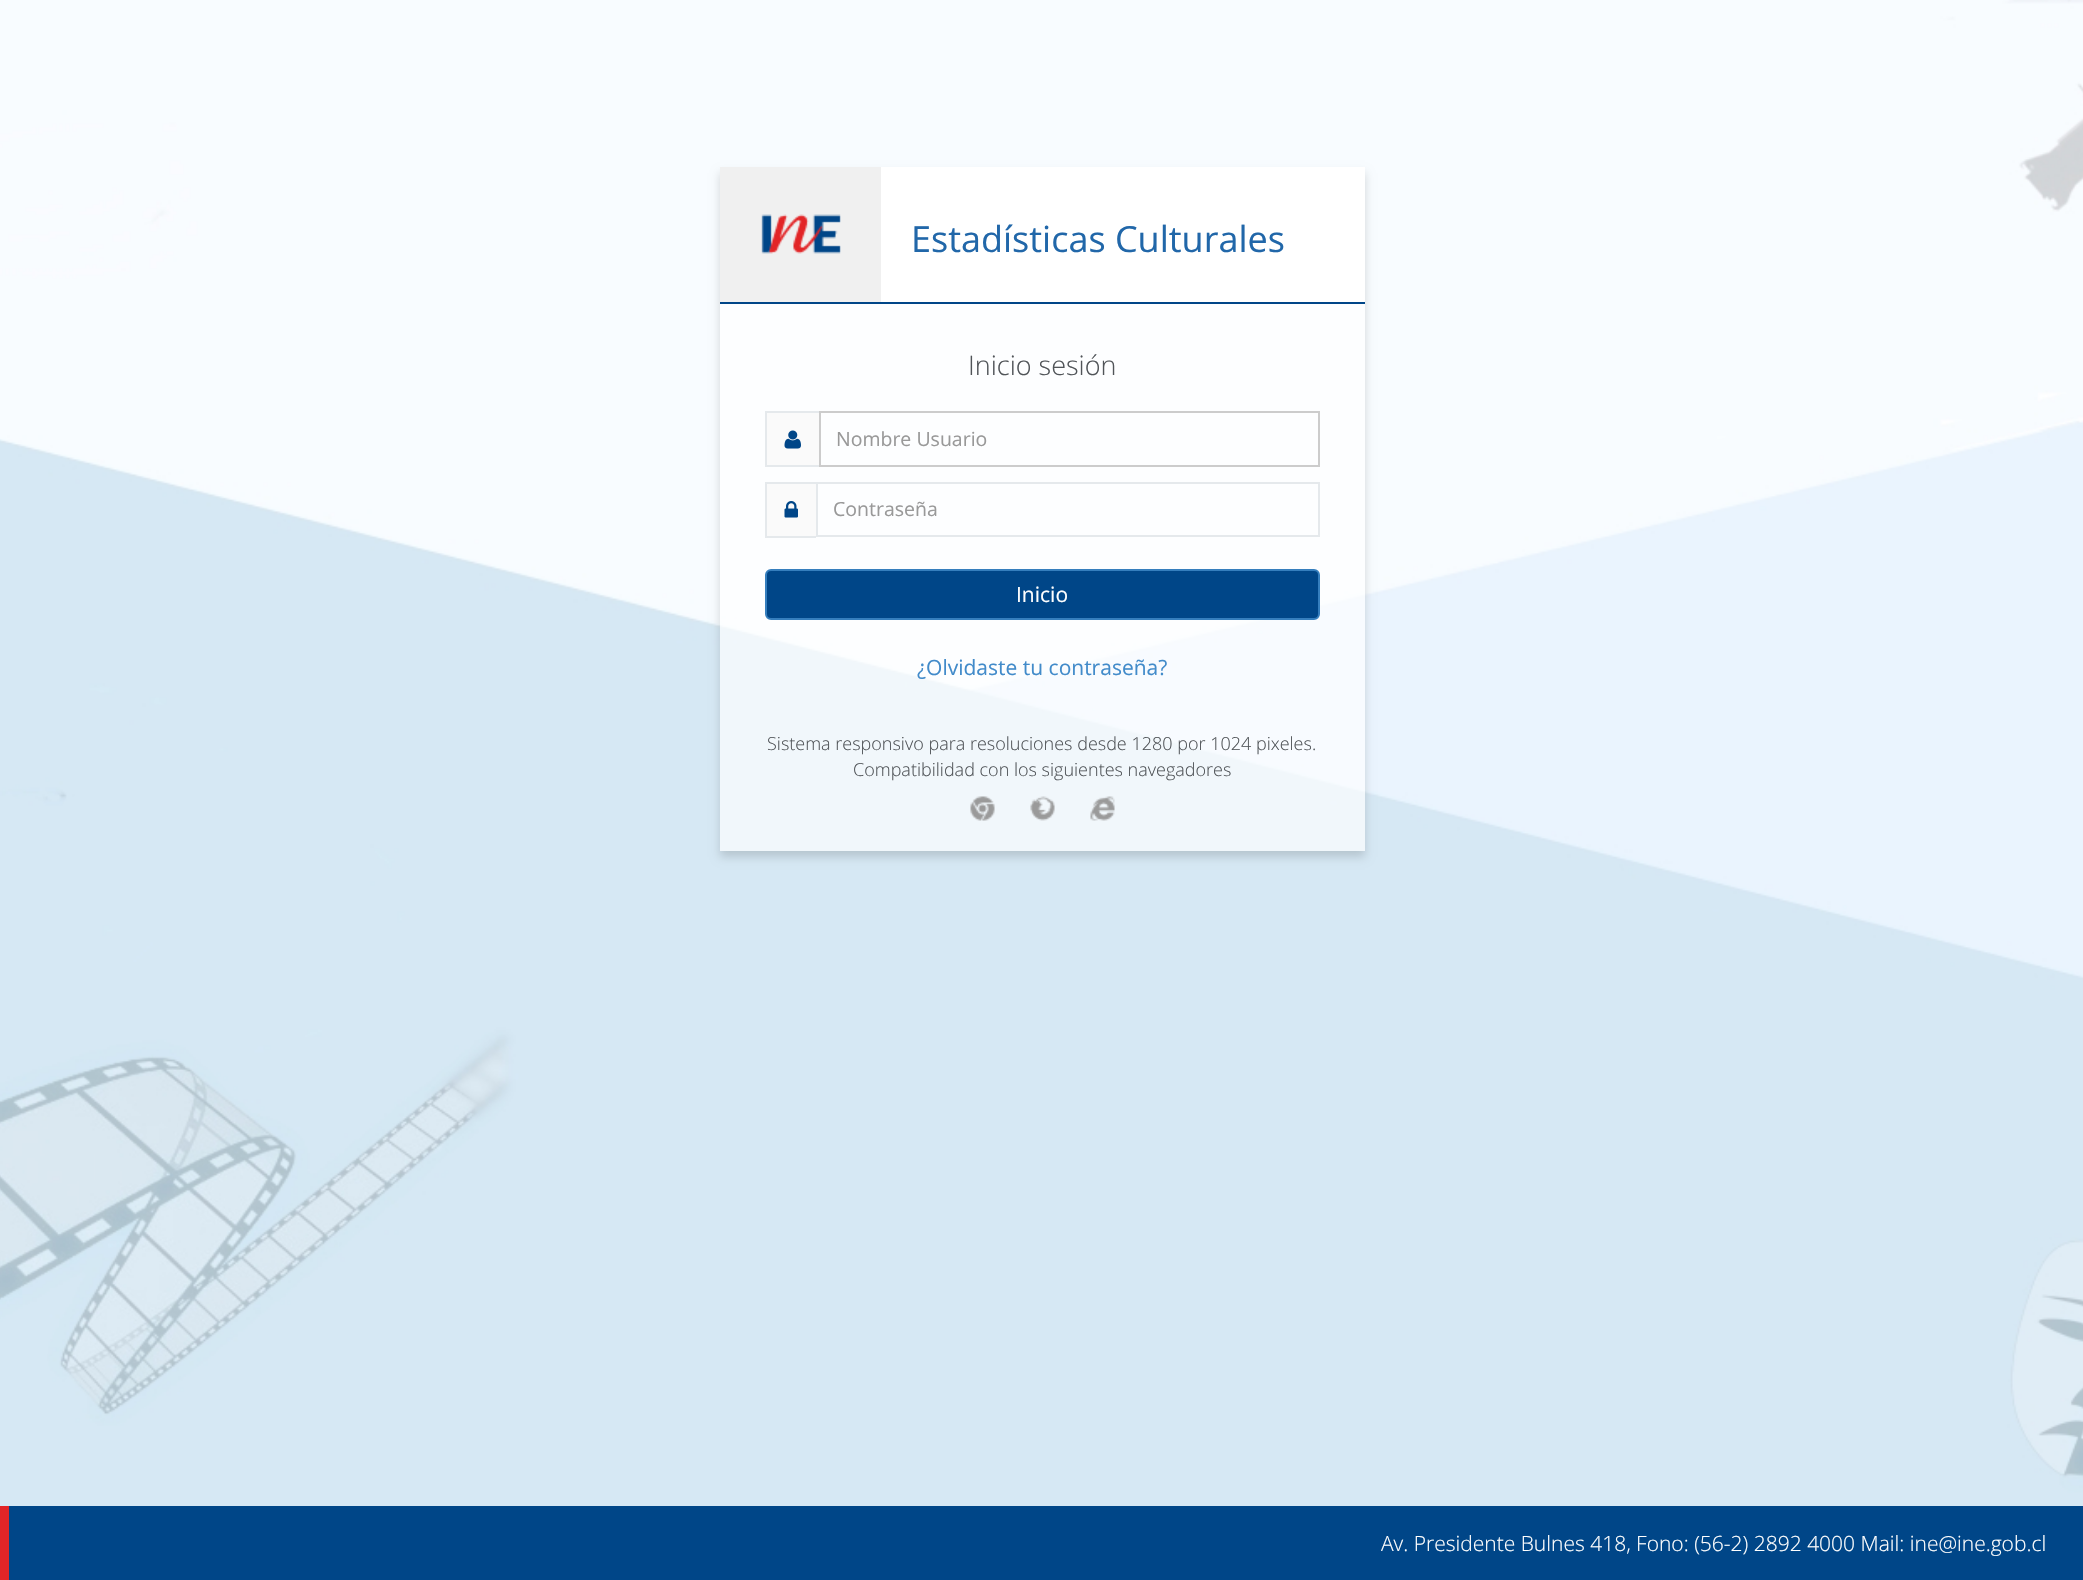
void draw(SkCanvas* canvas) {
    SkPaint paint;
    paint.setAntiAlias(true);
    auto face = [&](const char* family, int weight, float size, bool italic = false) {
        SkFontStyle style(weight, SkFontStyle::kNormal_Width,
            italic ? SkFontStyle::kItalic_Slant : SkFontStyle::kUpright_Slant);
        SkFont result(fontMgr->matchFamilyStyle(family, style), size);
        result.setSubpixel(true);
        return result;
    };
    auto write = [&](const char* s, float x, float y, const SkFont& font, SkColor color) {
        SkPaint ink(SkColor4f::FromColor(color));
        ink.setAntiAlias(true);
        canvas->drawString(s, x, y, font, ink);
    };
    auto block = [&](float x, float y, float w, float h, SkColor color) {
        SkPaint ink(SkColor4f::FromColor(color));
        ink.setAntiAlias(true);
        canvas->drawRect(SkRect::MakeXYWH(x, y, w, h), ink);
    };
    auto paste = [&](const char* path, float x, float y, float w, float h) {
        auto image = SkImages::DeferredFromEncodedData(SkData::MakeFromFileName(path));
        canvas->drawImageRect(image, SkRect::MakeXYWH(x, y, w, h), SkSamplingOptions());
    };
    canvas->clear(SK_ColorWHITE);
    paste("pic1.png", 0, 0, 2083, 1506);
    canvas->save();
    canvas->clipPath(SkPathBuilder(SkPathFillType::kEvenOdd).moveTo(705, 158).lineTo(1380, 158).lineTo(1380, 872).lineTo(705, 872).close().moveTo(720, 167).lineTo(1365, 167).lineTo(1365, 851).lineTo(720, 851).close().detach(), true);
    paint.setColor(SkColorSetARGB(38, 0, 0, 0));
    paint.setMaskFilter(SkMaskFilter::MakeBlur(kNormal_SkBlurStyle, 4.5f));
    canvas->drawRect(SkRect::MakeXYWH(720, 173, 645, 684), paint);
    paint.setMaskFilter(nullptr);
    canvas->restore();
    block(720, 304, 645, 547, SkColorSetARGB(166, 255, 255, 255));
    block(881, 167, 484, 135, SK_ColorWHITE);
    block(720, 302, 645, 2, SkColorSetRGB(0, 70, 136));
    block(720, 167, 161, 135, SkColorSetRGB(240, 240, 240));
    paste("pic2.png", 761, 214, 80, 40);
    auto kFont1 = face("Open Sans", 400, 36);
    write("Estadísticas Culturales", 911, 252, kFont1, SkColorSetRGB(33, 103, 169));
    auto kFont2 = face("Open Sans", 300, 27);
    write("Inicio sesión", 968, 375, kFont2, SkColorSetRGB(80, 84, 88));
    block(767, 413, 52, 52, SkColorSetRGB(250, 250, 250));
    block(765, 411, 54, 2, SkColorSetRGB(229, 233, 236));
    block(765, 465, 54, 2, SkColorSetRGB(229, 233, 236));
    block(765, 411, 2, 56, SkColorSetRGB(229, 233, 236));
    paste("pic3.png", 784, 430, 17, 19);
    paint.setStyle(SkPaint::kStroke_Style);
    paint.setStrokeWidth(2);
    paint.setColor(SkColorSetRGB(204, 204, 204));
    canvas->drawRect(SkRect::MakeXYWH(820, 412, 499, 54), paint);
    auto kFont3 = face("Open Sans", 400, 19.5f);
    write("Nombre Usuario", 836, 446, kFont3, SkColorSetRGB(153, 153, 153));
    block(767, 484, 49, 52, SkColorSetRGB(250, 250, 250));
    block(765, 482, 51, 2, SkColorSetRGB(229, 233, 236));
    block(765, 536, 51, 2, SkColorSetRGB(229, 233, 236));
    block(765, 482, 2, 55, SkColorSetRGB(229, 233, 236));
    paste("pic4.png", 784, 501, 14, 17);
    paint.setColor(SkColorSetRGB(229, 233, 236));
    canvas->drawRect(SkRect::MakeXYWH(817, 483, 502, 53), paint);
    write("Contraseña", 833, 516, kFont3, SkColorSetRGB(153, 153, 153));
    paint.setStyle(SkPaint::kFill_Style);
    paint.setColor(SkColorSetRGB(0, 70, 136));
    canvas->drawRoundRect(SkRect::MakeXYWH(766, 570, 553, 49), 5, 5, paint);
    paint.setStyle(SkPaint::kStroke_Style);
    paint.setColor(SkColorSetRGB(53, 126, 189));
    canvas->drawRoundRect(SkRect::MakeXYWH(766, 570, 553, 49), 5, 5, paint);
    auto kFont4 = face("Open Sans", 400, 21);
    write("Inicio", 1016, 602, kFont4, SK_ColorWHITE);
    write("¿Olvidaste tu contraseña?", 917, 675, kFont4, SkColorSetRGB(66, 139, 202));
    auto kFont5 = face("Open Sans", 300, 18);
    write("Sistema responsivo para resoluciones desde 1280 por 1024 pixeles.", 767, 750, kFont5, SkColorSetRGB(80, 84, 88));
    write("Compatibilidad con los siguientes navegadores", 853, 776, kFont5, SkColorSetRGB(80, 84, 88));
    paste("pic5.png", 970, 796, 25, 25);
    paste("pic6.png", 1030, 796, 25, 25);
    paste("pic7.png", 1090, 796, 25, 25);
    block(9, 1506, 2074, 74, SkColorSetRGB(0, 70, 136));
    block(0, 1506, 9, 74, SkColorSetRGB(226, 37, 39));
    auto kFont6 = face("Open Sans", 300, 21);
    write("Av. Presidente Bulnes 418, Fono: (56-2) 2892 4000 Mail: ine@ine.gob.cl", 1381, 1551, kFont6, SK_ColorWHITE);
}
